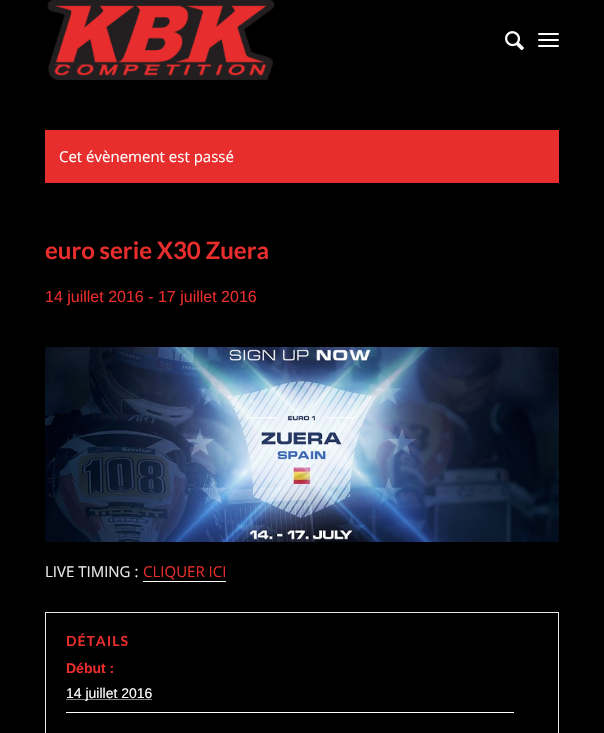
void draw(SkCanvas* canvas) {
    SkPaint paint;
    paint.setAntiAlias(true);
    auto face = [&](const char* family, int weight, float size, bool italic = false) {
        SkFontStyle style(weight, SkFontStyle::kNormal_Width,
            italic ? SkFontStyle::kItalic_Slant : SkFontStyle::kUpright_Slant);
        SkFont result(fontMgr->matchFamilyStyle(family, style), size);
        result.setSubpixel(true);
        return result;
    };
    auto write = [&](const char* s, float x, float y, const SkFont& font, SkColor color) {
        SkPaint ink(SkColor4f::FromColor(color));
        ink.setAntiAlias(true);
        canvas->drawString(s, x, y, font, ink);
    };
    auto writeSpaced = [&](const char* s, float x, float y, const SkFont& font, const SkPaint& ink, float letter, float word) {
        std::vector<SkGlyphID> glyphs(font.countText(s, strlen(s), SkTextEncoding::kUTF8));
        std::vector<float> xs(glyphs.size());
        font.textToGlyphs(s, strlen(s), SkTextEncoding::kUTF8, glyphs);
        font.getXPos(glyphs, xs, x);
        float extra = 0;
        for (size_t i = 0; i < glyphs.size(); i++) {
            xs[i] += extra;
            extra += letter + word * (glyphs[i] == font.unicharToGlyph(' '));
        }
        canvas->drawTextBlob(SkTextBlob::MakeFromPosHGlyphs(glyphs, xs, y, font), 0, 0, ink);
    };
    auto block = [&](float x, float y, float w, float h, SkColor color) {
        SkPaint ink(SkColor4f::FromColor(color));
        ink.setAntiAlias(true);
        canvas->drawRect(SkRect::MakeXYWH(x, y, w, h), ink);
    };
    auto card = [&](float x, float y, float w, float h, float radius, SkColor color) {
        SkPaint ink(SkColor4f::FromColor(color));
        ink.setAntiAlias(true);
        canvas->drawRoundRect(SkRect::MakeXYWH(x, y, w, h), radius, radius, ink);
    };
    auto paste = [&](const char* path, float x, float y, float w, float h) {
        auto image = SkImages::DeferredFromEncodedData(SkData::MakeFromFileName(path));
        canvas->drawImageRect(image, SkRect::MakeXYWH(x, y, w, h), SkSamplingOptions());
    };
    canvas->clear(SK_ColorBLACK);
    paste("pic1.png", 47, 0, 228, 80);
    paste("pic2.png", 505, 31, 19, 20);
    card(538, 39, 21, 2, 1, SK_ColorWHITE);
    card(538, 33, 21, 2, 1, SK_ColorWHITE);
    card(538, 45, 21, 2, 1, SK_ColorWHITE);
    block(45, 130, 514, 53, SkColorSetRGB(232, 45, 45));
    auto kFont1 = face("Open Sans", 400, 15);
    write("Cet évènement est passé", 59, 162, kFont1, SK_ColorWHITE);
    auto kFont2 = face("Lato", 700, 24);
    write("euro serie X30 Zuera", 45, 259, kFont2, SkColorSetRGB(232, 45, 45));
    auto kFont3 = face("Liberation Sans", 400, 16);
    write("14 juillet 2016 - 17 juillet 2016", 45, 302, kFont3, SkColorSetRGB(232, 45, 45));
    paste("pic3.png", 45, 347, 514, 195);
    write("LIVE TIMING :", 45, 577, kFont1, SkColorSetRGB(230, 231, 232));
    write("CLIQUER ICI", 143, 577, kFont1, SkColorSetRGB(232, 45, 45));
    block(143, 581, 83, 1, SK_ColorWHITE);
    paint.setStyle(SkPaint::kStroke_Style);
    paint.setStrokeWidth(1);
    paint.setColor(SkColorSetRGB(230, 231, 232));
    canvas->drawRect(SkRect::MakeXYWH(45.5f, 612.5f, 513, 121), paint);
    auto kFont4 = face("Lato", 700, 14);
    paint.setStyle(SkPaint::kFill_Style);
    paint.setColor(SkColorSetRGB(232, 45, 45));
    writeSpaced("DÉTAILS", 66, 646, kFont4, paint, 1, 0);
    auto kFont5 = face("Liberation Sans", 700, 14);
    write("Début :", 66, 673, kFont5, SkColorSetRGB(232, 45, 45));
    block(66, 712, 448, 1, SK_ColorWHITE);
    paint.setStyle(SkPaint::kStroke_Style);
    paint.setColor(SK_ColorWHITE);
    paint.setPathEffect(SkDashPathEffect::Make({{1, 1}}, 0));
    canvas->drawPath(SkPathBuilder().moveTo(66.5f, 699.5f).lineTo(152.5f, 699.5f).detach(), paint);
    paint.setPathEffect(nullptr);
    auto kFont6 = face("Liberation Sans", 400, 14);
    write("14 juillet 2016", 66, 698, kFont6, SK_ColorWHITE);
}
